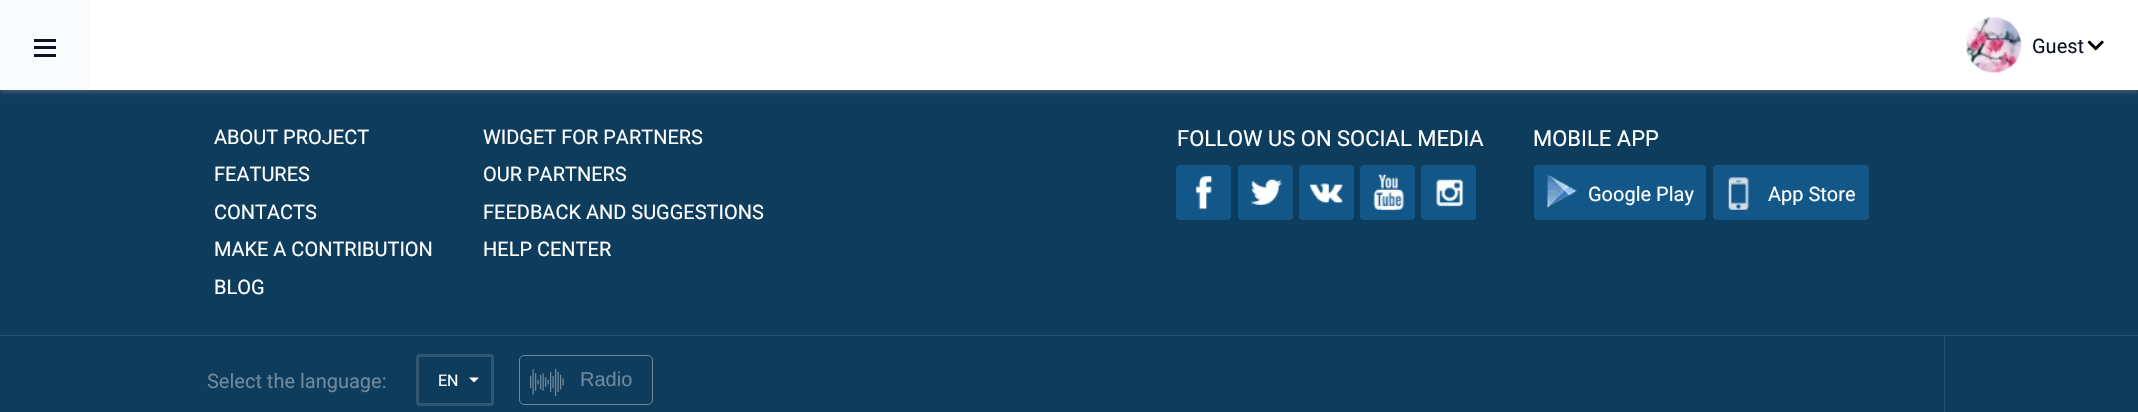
void draw(SkCanvas* canvas) {
    SkPaint paint;
    paint.setAntiAlias(true);
    auto face = [&](const char* family, int weight, float size, bool italic = false) {
        SkFontStyle style(weight, SkFontStyle::kNormal_Width,
            italic ? SkFontStyle::kItalic_Slant : SkFontStyle::kUpright_Slant);
        SkFont result(fontMgr->matchFamilyStyle(family, style), size);
        result.setSubpixel(true);
        return result;
    };
    auto write = [&](const char* s, float x, float y, const SkFont& font, SkColor color) {
        SkPaint ink(SkColor4f::FromColor(color));
        ink.setAntiAlias(true);
        canvas->drawString(s, x, y, font, ink);
    };
    auto block = [&](float x, float y, float w, float h, SkColor color) {
        SkPaint ink(SkColor4f::FromColor(color));
        ink.setAntiAlias(true);
        canvas->drawRect(SkRect::MakeXYWH(x, y, w, h), ink);
    };
    auto card = [&](float x, float y, float w, float h, float radius, SkColor color) {
        SkPaint ink(SkColor4f::FromColor(color));
        ink.setAntiAlias(true);
        canvas->drawRoundRect(SkRect::MakeXYWH(x, y, w, h), radius, radius, ink);
    };
    auto paste = [&](const char* path, float x, float y, float w, float h) {
        auto image = SkImages::DeferredFromEncodedData(SkData::MakeFromFileName(path));
        canvas->drawImageRect(image, SkRect::MakeXYWH(x, y, w, h), SkSamplingOptions());
    };
    canvas->clear(SkColorSetRGB(14, 60, 92));
    paint.setColor(SkColorSetARGB(51, 0, 0, 0));
    paint.setMaskFilter(SkMaskFilter::MakeBlur(kNormal_SkBlurStyle, 1));
    canvas->drawRect(SkRect::MakeXYWH(0, 1, 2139, 90), paint);
    paint.setMaskFilter(nullptr);
    paint.setColor(SkColorSetARGB(128, 170, 170, 170));
    paint.setMaskFilter(SkMaskFilter::MakeBlur(kNormal_SkBlurStyle, 2.5f));
    canvas->drawRect(SkRect::MakeXYWH(0, 1, 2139, 90), paint);
    paint.setMaskFilter(nullptr);
    block(90, 0, 2048, 90, SK_ColorWHITE);
    block(0, 0, 90, 90, SkColorSetRGB(250, 251, 252));
    block(34, 39, 22, 3, SkColorSetRGB(13, 19, 34));
    block(34, 46, 22, 3, SkColorSetRGB(13, 19, 34));
    block(34, 54, 22, 3, SkColorSetRGB(13, 19, 34));
    paste("pic1.png", 1966, 17, 56, 56);
    auto kFont1 = face("Roboto", 400, 20);
    write("Guest", 2032, 53, kFont1, SkColorSetRGB(13, 19, 34));
    paste("pic2.png", 2087, 40, 17, 11);
    write("ABOUT PROJECT", 214, 144, kFont1, SK_ColorWHITE);
    write("FEATURES", 214, 181, kFont1, SK_ColorWHITE);
    write("CONTACTS", 214, 219, kFont1, SK_ColorWHITE);
    write("MAKE A CONTRIBUTION", 214, 256, kFont1, SK_ColorWHITE);
    write("BLOG", 214, 294, kFont1, SK_ColorWHITE);
    write("WIDGET FOR PARTNERS", 483, 144, kFont1, SK_ColorWHITE);
    write("OUR PARTNERS", 483, 181, kFont1, SK_ColorWHITE);
    write("FEEDBACK AND SUGGESTIONS", 483, 219, kFont1, SK_ColorWHITE);
    write("HELP CENTER", 483, 256, kFont1, SK_ColorWHITE);
    auto kFont2 = face("Roboto", 400, 22);
    write("FOLLOW US ON SOCIAL MEDIA", 1177, 146, kFont2, SK_ColorWHITE);
    card(1176, 165, 55, 55, 4, SkColorSetRGB(18, 87, 136));
    paste("pic3.png", 1195, 175, 18, 35);
    card(1238, 165, 55, 55, 4, SkColorSetRGB(18, 87, 136));
    paste("pic4.png", 1251, 178, 32, 28);
    card(1299, 165, 55, 55, 4, SkColorSetRGB(18, 87, 136));
    paste("pic5.png", 1309, 183, 34, 21);
    card(1360, 165, 55, 55, 4, SkColorSetRGB(18, 87, 136));
    paste("pic6.png", 1373, 173, 31, 38);
    card(1421, 165, 55, 55, 4, SkColorSetRGB(18, 87, 136));
    paste("pic7.png", 1436, 179, 28, 28);
    write("MOBILE APP", 1533, 146, kFont2, SK_ColorWHITE);
    card(1534, 165, 172, 55, 4, SkColorSetRGB(18, 87, 136));
    paste("pic8.png", 1547, 174, 30, 35);
    write("Google Play", 1588, 201, kFont1, SK_ColorWHITE);
    card(1713, 165, 156, 55, 4, SkColorSetRGB(18, 87, 136));
    paste("pic9.png", 1728, 177, 21, 33);
    write("App Store", 1768, 201, kFont1, SK_ColorWHITE);
    block(0, 335, 2138, 1, SkColorSetRGB(39, 80, 109));
    block(1944, 336, 1, 76, SkColorSetRGB(39, 80, 109));
    write("Select the language:", 207, 388, kFont1, SkColorSetRGB(110, 138, 157));
    paint.setStyle(SkPaint::kStroke_Style);
    paint.setStrokeWidth(3);
    paint.setColor(SkColorSetRGB(50, 87, 113));
    canvas->drawRoundRect(SkRect::MakeXYWH(417.5f, 355.5f, 75, 49), 2.5f, 2.5f, paint);
    auto kFont3 = face("Roboto", 400, 16);
    write("EN", 438, 386, kFont3, SK_ColorWHITE);
    paint.setStyle(SkPaint::kFill_Style);
    paint.setColor(SK_ColorWHITE);
    canvas->drawPath(SkPathBuilder().moveTo(469, 377.5f).lineTo(479, 377.5f).lineTo(474, 382.5f).close().detach(), paint);
    paint.setStyle(SkPaint::kStroke_Style);
    paint.setStrokeWidth(1);
    paint.setColor(SkColorSetRGB(110, 138, 157));
    canvas->drawRoundRect(SkRect::MakeXYWH(519.5f, 355.5f, 133, 49), 4.5f, 4.5f, paint);
    paste("pic10.png", 530, 368, 34, 28);
    auto kFont4 = face("Liberation Sans", 400, 20);
    write("Radio", 580, 386, kFont4, SkColorSetRGB(110, 138, 157));
}
